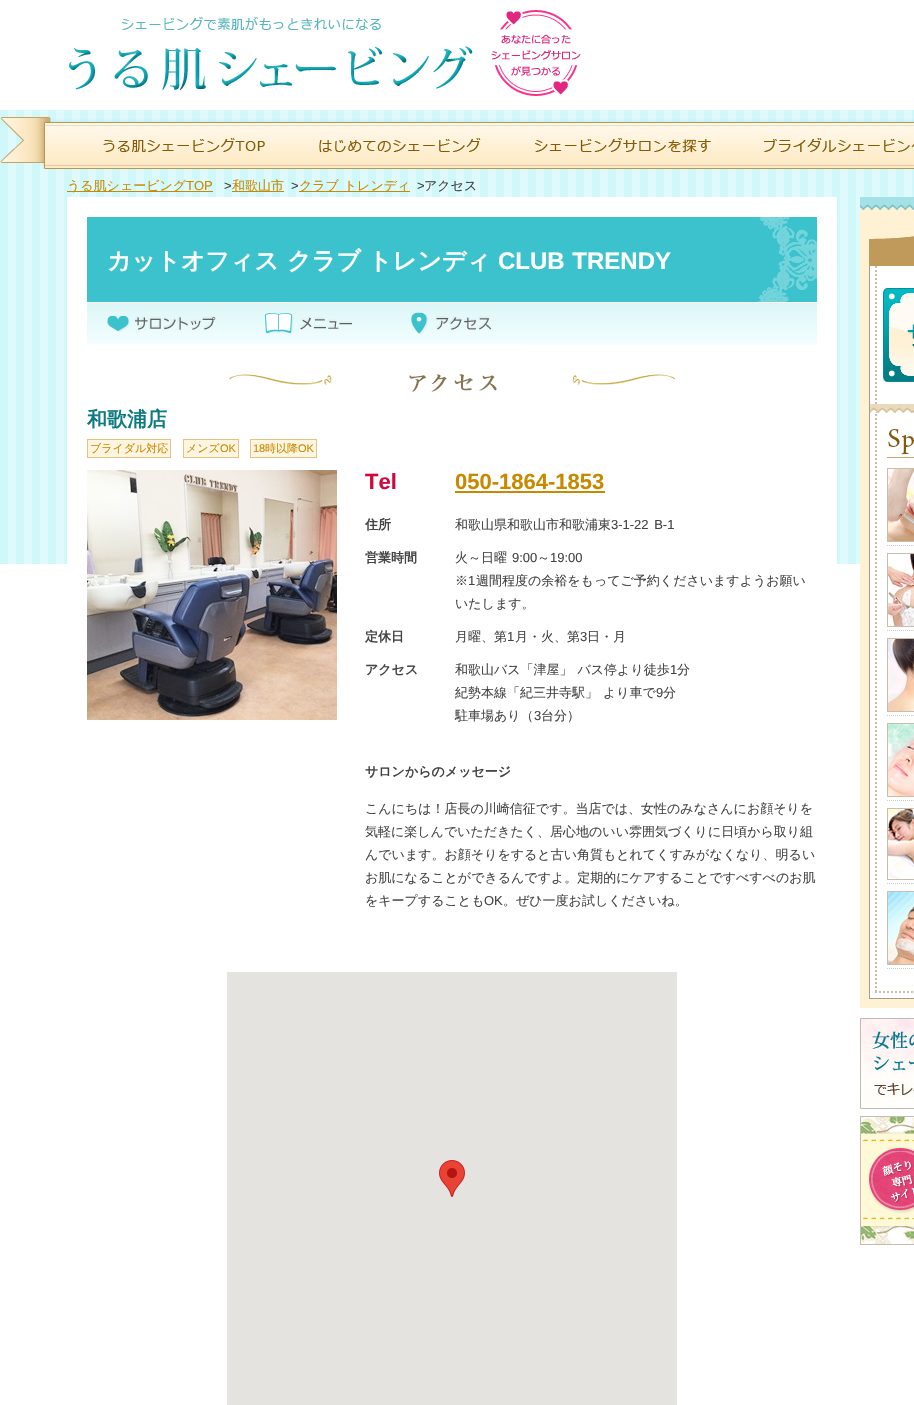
void draw(SkCanvas* canvas) {
    SkPaint paint;
    paint.setAntiAlias(true);
    auto face = [&](const char* family, int weight, float size, bool italic = false) {
        SkFontStyle style(weight, SkFontStyle::kNormal_Width,
            italic ? SkFontStyle::kItalic_Slant : SkFontStyle::kUpright_Slant);
        SkFont result(fontMgr->matchFamilyStyle(family, style), size);
        result.setSubpixel(true);
        return result;
    };
    auto write = [&](const char* s, float x, float y, const SkFont& font, SkColor color) {
        SkPaint ink(SkColor4f::FromColor(color));
        ink.setAntiAlias(true);
        canvas->drawString(s, x, y, font, ink);
    };
    auto writeSpaced = [&](const char* s, float x, float y, const SkFont& font, const SkPaint& ink, float letter, float word) {
        std::vector<SkGlyphID> glyphs(font.countText(s, strlen(s), SkTextEncoding::kUTF8));
        std::vector<float> xs(glyphs.size());
        font.textToGlyphs(s, strlen(s), SkTextEncoding::kUTF8, glyphs);
        font.getXPos(glyphs, xs, x);
        float extra = 0;
        for (size_t i = 0; i < glyphs.size(); i++) {
            xs[i] += extra;
            extra += letter + word * (glyphs[i] == font.unicharToGlyph(' '));
        }
        canvas->drawTextBlob(SkTextBlob::MakeFromPosHGlyphs(glyphs, xs, y, font), 0, 0, ink);
    };
    auto block = [&](float x, float y, float w, float h, SkColor color) {
        SkPaint ink(SkColor4f::FromColor(color));
        ink.setAntiAlias(true);
        canvas->drawRect(SkRect::MakeXYWH(x, y, w, h), ink);
    };
    auto paste = [&](const char* path, float x, float y, float w, float h) {
        auto image = SkImages::DeferredFromEncodedData(SkData::MakeFromFileName(path));
        canvas->drawImageRect(image, SkRect::MakeXYWH(x, y, w, h), SkSamplingOptions());
    };
    canvas->clear(SK_ColorWHITE);
    paste("pic1.png", 69, 10, 512, 86);
    paste("pic2.png", 0, 110, 914, 454);
    paste("pic3.png", 0, 117, 914, 52);
    paste("pic4.png", 103, 138, 162, 14);
    paste("pic5.png", 319, 138, 162, 14);
    paste("pic6.png", 535, 138, 176, 15);
    paste("pic7.png", 764, 138, 150, 14);
    block(67, 191, 146, 1, SkColorSetRGB(200, 137, 0));
    auto kFont1 = face("WenQuanYi Zen Hei", 500, 13);
    write("うる肌シェービング", 67, 190, kFont1, SkColorSetRGB(200, 137, 0));
    auto kFont2 = face("Liberation Sans", 400, 13);
    write("TOP", 186, 190, kFont2, SkColorSetRGB(200, 137, 0));
    write(">", 224, 190, kFont2, SkColorSetRGB(68, 68, 68));
    block(232, 191, 52, 1, SkColorSetRGB(200, 137, 0));
    write("和歌山市", 232, 190, kFont1, SkColorSetRGB(200, 137, 0));
    write(">", 291, 190, kFont2, SkColorSetRGB(68, 68, 68));
    block(299, 191, 111, 1, SkColorSetRGB(200, 137, 0));
    paint.setColor(SkColorSetRGB(200, 137, 0));
    writeSpaced("クラブ トレンディ", 299, 190, kFont1, paint, 0, 1);
    write(">", 417, 190, kFont2, SkColorSetRGB(68, 68, 68));
    write("アクセス", 424, 190, kFont1, SkColorSetRGB(68, 68, 68));
    block(67, 197, 770, 367, SK_ColorWHITE);
    paste("pic8.png", 87, 217, 730, 85);
    auto kFont3 = face("WenQuanYi Zen Hei", 700, 24);
    write("カットオフィス", 107, 269, kFont3, SK_ColorWHITE);
    write("クラブ", 287, 269, kFont3, SK_ColorWHITE);
    write("トレンディ", 368, 269, kFont3, SK_ColorWHITE);
    auto kFont4 = face("Liberation Sans", 700, 24);
    paint.setColor(SK_ColorWHITE);
    writeSpaced("CLUB TRENDY", 498, 269, kFont4, paint, 0, 1);
    {
        const SkColor colors[] = {SkColorSetRGB(221, 246, 247), SkColorSetRGB(243, 254, 255)};
        const float stops[] = {0, 1};
        const SkPoint ends[] = {{452, 303}, {452, 345}};
        paint.setShader(SkGradientShader::MakeLinear(ends, colors, stops, 2, SkTileMode::kClamp));
        paint.setAlpha(255);
    }
    canvas->drawRect(SkRect::MakeXYWH(87, 303, 730, 42), paint);
    paste("pic9.png", 265, 313, 87, 22);
    paste("pic10.png", 411, 312, 81, 23);
    block(87, 344, 438, 1, SK_ColorWHITE);
    paste("pic11.png", 107, 316, 109, 16);
    paste("pic12.png", 229, 374, 446, 18);
    auto kFont5 = face("WenQuanYi Zen Hei", 700, 20);
    write("和歌浦店", 87, 426, kFont5, SkColorSetRGB(12, 122, 128));
    paint.setShader(nullptr);
    paint.setColor(SkColorSetRGB(255, 245, 224));
    canvas->drawRect(SkRect::MakeXYWH(87.5f, 439.5f, 83, 18), paint);
    paint.setStyle(SkPaint::kStroke_Style);
    paint.setStrokeWidth(1);
    paint.setColor(SkColorSetRGB(230, 194, 129));
    canvas->drawRect(SkRect::MakeXYWH(87.5f, 439.5f, 83, 18), paint);
    auto kFont6 = face("WenQuanYi Zen Hei", 500, 11);
    write("ブライダル対応", 90, 452, kFont6, SkColorSetRGB(200, 137, 0));
    paint.setStyle(SkPaint::kFill_Style);
    paint.setColor(SkColorSetRGB(255, 245, 224));
    canvas->drawRect(SkRect::MakeXYWH(183.5f, 439.5f, 55, 18), paint);
    paint.setStyle(SkPaint::kStroke_Style);
    paint.setColor(SkColorSetRGB(230, 194, 129));
    canvas->drawRect(SkRect::MakeXYWH(183.5f, 439.5f, 55, 18), paint);
    write("メンズ", 186, 452, kFont6, SkColorSetRGB(200, 137, 0));
    auto kFont7 = face("Liberation Sans", 400, 11);
    write("OK", 220, 452, kFont7, SkColorSetRGB(200, 137, 0));
    paint.setStyle(SkPaint::kFill_Style);
    paint.setColor(SkColorSetRGB(255, 245, 224));
    canvas->drawRect(SkRect::MakeXYWH(250.5f, 439.5f, 66, 18), paint);
    paint.setStyle(SkPaint::kStroke_Style);
    paint.setColor(SkColorSetRGB(230, 194, 129));
    canvas->drawRect(SkRect::MakeXYWH(250.5f, 439.5f, 66, 18), paint);
    write("18", 253, 452, kFont7, SkColorSetRGB(200, 137, 0));
    write("時以降", 265, 452, kFont6, SkColorSetRGB(200, 137, 0));
    write("OK", 298, 452, kFont7, SkColorSetRGB(200, 137, 0));
    paste("pic13.png", 87, 470, 250, 250);
    auto kFont8 = face("Liberation Sans", 700, 22);
    write("Tel", 365, 489, kFont8, SkColorSetRGB(208, 8, 60));
    write("050-1864-1853", 455, 489, kFont8, SkColorSetRGB(200, 137, 0));
    block(455, 491, 150, 2, SkColorSetRGB(200, 137, 0));
    auto kFont9 = face("WenQuanYi Zen Hei", 700, 13);
    write("住所", 365, 529, kFont9, SkColorSetRGB(68, 68, 68));
    write("和歌山県和歌山市和歌浦東", 455, 529, kFont1, SkColorSetRGB(68, 68, 68));
    paint.setStyle(SkPaint::kFill_Style);
    paint.setColor(SkColorSetRGB(68, 68, 68));
    writeSpaced("3-1-22 B-1", 611, 529, kFont2, paint, 0, 2);
    write("営業時間", 365, 562, kFont9, SkColorSetRGB(68, 68, 68));
    write("火～日曜", 455, 562, kFont1, SkColorSetRGB(68, 68, 68));
    write("9:00", 512, 562, kFont2, SkColorSetRGB(68, 68, 68));
    write("～", 537, 562, kFont1, SkColorSetRGB(68, 68, 68));
    write("19:00", 550, 562, kFont2, SkColorSetRGB(68, 68, 68));
    write("※", 455, 585, kFont1, SkColorSetRGB(68, 68, 68));
    write("1", 468, 585, kFont2, SkColorSetRGB(68, 68, 68));
    write("週間程度の余裕をもってご予約くださいますようお願い", 476, 585, kFont1, SkColorSetRGB(68, 68, 68));
    write("いたします。", 455, 608, kFont1, SkColorSetRGB(68, 68, 68));
    write("定休日", 365, 641, kFont9, SkColorSetRGB(68, 68, 68));
    write("月曜、第", 455, 641, kFont1, SkColorSetRGB(68, 68, 68));
    write("1", 507, 641, kFont2, SkColorSetRGB(68, 68, 68));
    write("月・火、第", 515, 641, kFont1, SkColorSetRGB(68, 68, 68));
    write("3", 580, 641, kFont2, SkColorSetRGB(68, 68, 68));
    write("日・月", 587, 641, kFont1, SkColorSetRGB(68, 68, 68));
    write("アクセス", 365, 674, kFont9, SkColorSetRGB(68, 68, 68));
    writeSpaced("和歌山バス「津屋」 バス停より徒歩", 455, 674, kFont1, paint, 0, 1);
    write("1", 670, 674, kFont2, SkColorSetRGB(68, 68, 68));
    write("分", 677, 674, kFont1, SkColorSetRGB(68, 68, 68));
    writeSpaced("紀勢本線「紀三井寺駅」 より車で", 455, 697, kFont1, paint, 0, 1);
    write("9", 656, 697, kFont2, SkColorSetRGB(68, 68, 68));
    write("分", 663, 697, kFont1, SkColorSetRGB(68, 68, 68));
    write("駐車場あり（", 455, 720, kFont1, SkColorSetRGB(68, 68, 68));
    write("3", 534, 720, kFont2, SkColorSetRGB(68, 68, 68));
    write("台分）", 541, 720, kFont1, SkColorSetRGB(68, 68, 68));
    write("サロンからのメッセージ", 365, 776, kFont9, SkColorSetRGB(68, 68, 68));
    write("こんにちは！店長の川崎信征です。当店では、女性のみなさんにお顔そりを", 365, 813, kFont1, SkColorSetRGB(68, 68, 68));
    write("気軽に楽しんでいただきたく、居心地のいい雰囲気づくりに日頃から取り組", 365, 836, kFont1, SkColorSetRGB(68, 68, 68));
    write("んでいます。お顔そりをすると古い角質もとれてくすみがなくなり、明るい", 365, 859, kFont1, SkColorSetRGB(68, 68, 68));
    write("お肌になることができるんですよ。定期的にケアすることですべすべのお肌", 365, 882, kFont1, SkColorSetRGB(68, 68, 68));
    write("をキープすることも", 365, 905, kFont1, SkColorSetRGB(68, 68, 68));
    write("OK", 484, 905, kFont2, SkColorSetRGB(68, 68, 68));
    write("。ぜひ一度お試しくださいね。", 503, 905, kFont1, SkColorSetRGB(68, 68, 68));
    block(227, 972, 450, 433, SkColorSetRGB(229, 227, 223));
    paste("pic14.png", 439, 1160, 26, 37);
    block(860, 211, 54, 797, SkColorSetRGB(254, 241, 212));
    paste("pic15.png", 860, 197, 54, 14);
    paste("pic16.png", 868, 236, 46, 30);
    block(870, 266, 44, 732, SK_ColorWHITE);
    block(869, 998, 45, 1, SkColorSetRGB(166, 157, 135));
    block(869, 266, 1, 733, SkColorSetRGB(166, 157, 135));
    paint.setStyle(SkPaint::kStroke_Style);
    paint.setStrokeWidth(2);
    paint.setColor(SkColorSetRGB(202, 190, 170));
    paint.setPathEffect(SkDashPathEffect::Make({{2, 2}}, 0));
    canvas->drawPath(SkPathBuilder().moveTo(875, 992).lineTo(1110, 992).detach(), paint);
    paint.setPathEffect(nullptr);
    paint.setPathEffect(SkDashPathEffect::Make({{2, 2}}, 0));
    canvas->drawPath(SkPathBuilder().moveTo(876, 266).lineTo(876, 993).detach(), paint);
    paint.setPathEffect(nullptr);
    paste("pic17.png", 883, 382, 31, 1);
    paste("pic18.png", 883, 288, 31, 94);
    paste("pic19.png", 870, 404, 44, 9);
    paste("pic20.png", 887, 429, 27, 29);
    paint.setStrokeWidth(1);
    paint.setColor(SkColorSetRGB(204, 204, 204));
    paint.setPathEffect(SkDashPathEffect::Make({{1, 1}}, 0));
    canvas->drawPath(SkPathBuilder().moveTo(887, 545.5f).lineTo(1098, 545.5f).detach(), paint);
    paint.setPathEffect(nullptr);
    paint.setColor(SkColorSetRGB(202, 190, 170));
    canvas->drawRect(SkRect::MakeXYWH(887.5f, 468.5f, 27, 73), paint);
    paste("pic21.png", 888, 469, 26, 72);
    paint.setColor(SkColorSetRGB(204, 204, 204));
    paint.setPathEffect(SkDashPathEffect::Make({{1, 1}}, 0));
    canvas->drawPath(SkPathBuilder().moveTo(887, 630.5f).lineTo(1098, 630.5f).detach(), paint);
    paint.setPathEffect(nullptr);
    paint.setColor(SkColorSetRGB(202, 190, 170));
    canvas->drawRect(SkRect::MakeXYWH(887.5f, 553.5f, 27, 73), paint);
    paste("pic22.png", 888, 554, 26, 72);
    paint.setColor(SkColorSetRGB(204, 204, 204));
    paint.setPathEffect(SkDashPathEffect::Make({{1, 1}}, 0));
    canvas->drawPath(SkPathBuilder().moveTo(887, 715.5f).lineTo(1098, 715.5f).detach(), paint);
    paint.setPathEffect(nullptr);
    paint.setColor(SkColorSetRGB(202, 190, 170));
    canvas->drawRect(SkRect::MakeXYWH(887.5f, 638.5f, 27, 73), paint);
    paste("pic23.png", 888, 639, 26, 72);
    paint.setColor(SkColorSetRGB(204, 204, 204));
    paint.setPathEffect(SkDashPathEffect::Make({{1, 1}}, 0));
    canvas->drawPath(SkPathBuilder().moveTo(887, 800.5f).lineTo(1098, 800.5f).detach(), paint);
    paint.setPathEffect(nullptr);
    paint.setColor(SkColorSetRGB(202, 190, 170));
    canvas->drawRect(SkRect::MakeXYWH(887.5f, 723.5f, 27, 73), paint);
    paste("pic24.png", 888, 724, 26, 72);
    paint.setColor(SkColorSetRGB(204, 204, 204));
    paint.setPathEffect(SkDashPathEffect::Make({{1, 1}}, 0));
    canvas->drawPath(SkPathBuilder().moveTo(887, 883.5f).lineTo(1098, 883.5f).detach(), paint);
    paint.setPathEffect(nullptr);
    paint.setColor(SkColorSetRGB(202, 190, 170));
    canvas->drawRect(SkRect::MakeXYWH(887.5f, 808.5f, 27, 71), paint);
    paste("pic25.png", 888, 809, 26, 70);
    paint.setColor(SkColorSetRGB(204, 204, 204));
    paint.setPathEffect(SkDashPathEffect::Make({{1, 1}}, 0));
    canvas->drawPath(SkPathBuilder().moveTo(887, 968.5f).lineTo(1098, 968.5f).detach(), paint);
    paint.setPathEffect(nullptr);
    paint.setColor(SkColorSetRGB(202, 190, 170));
    canvas->drawRect(SkRect::MakeXYWH(887.5f, 891.5f, 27, 73), paint);
    paste("pic26.png", 888, 892, 26, 72);
    paste("pic27.png", 860, 1018, 54, 91);
    paste("pic28.png", 860, 1116, 54, 129);
}
